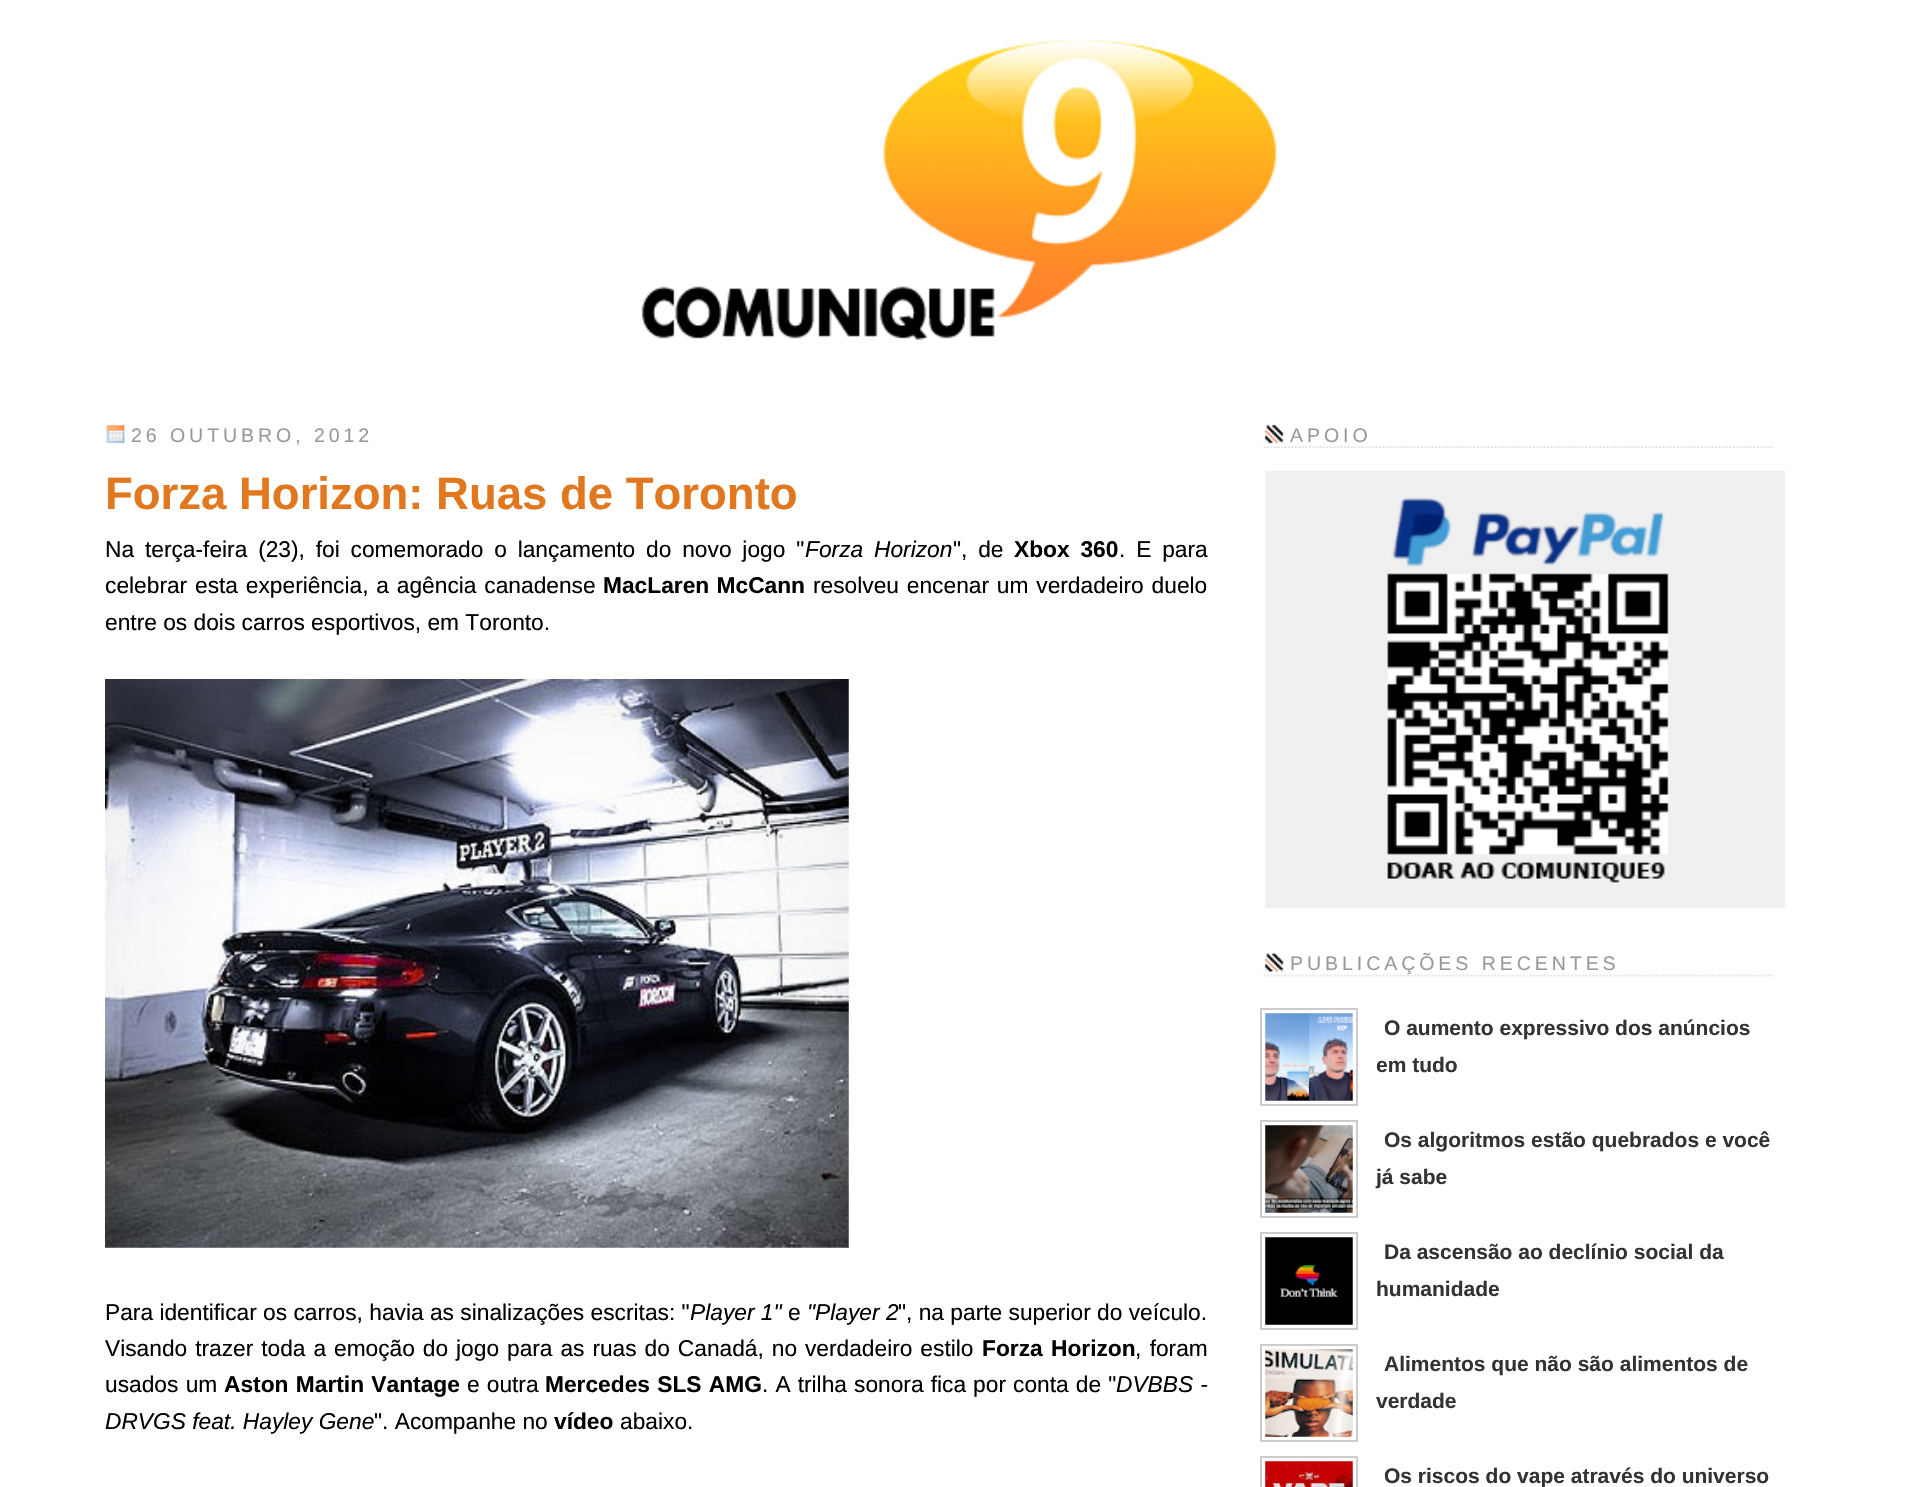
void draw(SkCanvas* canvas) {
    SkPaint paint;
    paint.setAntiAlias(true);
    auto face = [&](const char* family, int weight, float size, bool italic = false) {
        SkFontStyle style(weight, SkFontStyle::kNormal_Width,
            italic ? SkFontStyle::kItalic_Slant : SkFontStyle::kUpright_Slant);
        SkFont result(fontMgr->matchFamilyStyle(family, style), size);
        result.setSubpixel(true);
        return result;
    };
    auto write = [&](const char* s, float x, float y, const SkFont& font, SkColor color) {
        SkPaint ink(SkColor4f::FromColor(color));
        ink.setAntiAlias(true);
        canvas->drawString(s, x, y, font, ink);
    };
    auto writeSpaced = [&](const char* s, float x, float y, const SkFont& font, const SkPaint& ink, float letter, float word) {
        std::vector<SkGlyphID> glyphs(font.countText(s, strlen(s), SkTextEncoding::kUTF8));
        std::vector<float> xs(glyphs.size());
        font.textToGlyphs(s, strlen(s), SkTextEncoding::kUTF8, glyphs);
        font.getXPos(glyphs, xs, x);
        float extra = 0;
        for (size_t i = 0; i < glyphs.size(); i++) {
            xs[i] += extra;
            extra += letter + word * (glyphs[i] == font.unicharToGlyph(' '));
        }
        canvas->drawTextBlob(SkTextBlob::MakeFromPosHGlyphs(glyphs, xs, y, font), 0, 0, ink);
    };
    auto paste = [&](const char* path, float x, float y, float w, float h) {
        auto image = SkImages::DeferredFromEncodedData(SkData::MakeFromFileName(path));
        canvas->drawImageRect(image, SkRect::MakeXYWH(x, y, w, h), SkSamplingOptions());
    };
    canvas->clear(SK_ColorWHITE);
    paste("pic1.png", 641, 40, 636, 300);
    paste("pic2.png", 106, 424, 19, 20);
    auto kFont1 = face("Liberation Sans", 400, 19.6f);
    paint.setColor(SkColorSetRGB(153, 153, 153));
    writeSpaced("26 OUTUBRO, 2012", 131, 442, kFont1, paint, 3.9f, 0);
    auto kFont2 = face("Liberation Sans", 700, 45.5f);
    write("Forza Horizon: Ruas de Toronto", 105, 509, kFont2, SkColorSetRGB(225, 119, 30));
    auto kFont3 = face("Liberation Sans", 400, 22.75f);
    paint.setColor(SK_ColorBLACK);
    writeSpaced("Na terça-feira (23), foi comemorado o lançamento do novo jogo \"", 105, 557, kFont3, paint, 0, 4.5f);
    auto kFont4 = face("Liberation Sans", 400, 22.75f, true);
    writeSpaced("Forza Horizon", 805, 557, kFont4, paint, 0, 4.5f);
    writeSpaced("\", de", 953, 557, kFont3, paint, 0, 4.5f);
    auto kFont5 = face("Liberation Sans", 700, 22.75f);
    writeSpaced("Xbox 360", 1014, 557, kFont5, paint, 0, 4.5f);
    writeSpaced(". E para", 1119, 557, kFont3, paint, 0, 4.5f);
    writeSpaced("celebrar esta experiência, a agência canadense", 105, 593, kFont3, paint, 0, 1.5f);
    writeSpaced("MacLaren McCann", 603, 593, kFont5, paint, 0, 1);
    writeSpaced("resolveu encenar um verdadeiro duelo", 813, 593, kFont3, paint, 0, 1.5f);
    write("entre os dois carros esportivos, em Toronto.", 105, 630, kFont3, SK_ColorBLACK);
    paste("pic3.png", 105, 679, 744, 569);
    write("Para identificar os carros, havia as sinalizações escritas: \"", 105, 1320, kFont3, SK_ColorBLACK);
    write("Player 1\"", 690, 1320, kFont4, SK_ColorBLACK);
    write("e", 788, 1320, kFont3, SK_ColorBLACK);
    write("\"Player 2", 807, 1320, kFont4, SK_ColorBLACK);
    write("\", na parte superior do veículo.", 898, 1320, kFont3, SK_ColorBLACK);
    writeSpaced("Visando trazer toda a emoção do jogo para as ruas do Canadá, no verdadeiro estilo", 105, 1356, kFont3, paint, 0, 1.6f);
    writeSpaced("Forza Horizon", 982, 1356, kFont5, paint, 0, 2);
    writeSpaced(", foram", 1135, 1356, kFont3, paint, 0, 2);
    writeSpaced("usados um", 105, 1392, kFont3, paint, 0, 1);
    writeSpaced("Aston Martin Vantage", 224, 1392, kFont5, paint, 0, 1);
    writeSpaced("e outra", 467, 1392, kFont3, paint, 0, 0.75f);
    writeSpaced("Mercedes SLS AMG", 545, 1392, kFont5, paint, 0, 1);
    writeSpaced(". A trilha sonora fica por conta de \"", 762, 1392, kFont3, paint, 0, 0.75f);
    writeSpaced("DVBBS -", 1116, 1392, kFont4, paint, 0, 0.75f);
    write("DRVGS feat. Hayley Gene", 105, 1429, kFont4, SK_ColorBLACK);
    write("\". Acompanhe no", 374, 1429, kFont3, SK_ColorBLACK);
    write("vídeo", 554, 1429, kFont5, SK_ColorBLACK);
    write("abaixo.", 620, 1429, kFont3, SK_ColorBLACK);
    paste("pic4.png", 1263, 424, 511, 24);
    paint.setColor(SkColorSetRGB(153, 153, 153));
    writeSpaced("APOIO", 1290, 442, kFont1, paint, 3.9f, 0);
    paste("pic5.png", 1265, 470, 520, 439);
    paste("pic6.png", 1263, 953, 510, 24);
    writeSpaced("PUBLICAÇÕES RECENTES", 1290, 970, kFont1, paint, 3.9f, 0);
    paint.setStyle(SkPaint::kStroke_Style);
    paint.setStrokeWidth(2);
    paint.setColor(SkColorSetRGB(204, 204, 204));
    canvas->drawRect(SkRect::MakeXYWH(1261, 1009, 96, 96), paint);
    paste("pic7.png", 1265, 1013, 88, 88);
    auto kFont6 = face("Liberation Sans", 700, 21);
    write("O aumento expressivo dos anúncios", 1384, 1035, kFont6, SkColorSetRGB(51, 51, 51));
    write("em tudo", 1376, 1072, kFont6, SkColorSetRGB(51, 51, 51));
    canvas->drawRect(SkRect::MakeXYWH(1261, 1121, 96, 96), paint);
    paste("pic8.png", 1265, 1125, 88, 88);
    write("Os algoritmos estão quebrados e você", 1384, 1147, kFont6, SkColorSetRGB(51, 51, 51));
    write("já sabe", 1376, 1184, kFont6, SkColorSetRGB(51, 51, 51));
    canvas->drawRect(SkRect::MakeXYWH(1261, 1233, 96, 96), paint);
    paste("pic9.png", 1265, 1237, 88, 88);
    write("Da ascensão ao declínio social da", 1384, 1259, kFont6, SkColorSetRGB(51, 51, 51));
    write("humanidade", 1376, 1296, kFont6, SkColorSetRGB(51, 51, 51));
    canvas->drawRect(SkRect::MakeXYWH(1261, 1345, 96, 96), paint);
    paste("pic10.png", 1265, 1349, 88, 88);
    write("Alimentos que não são alimentos de", 1384, 1371, kFont6, SkColorSetRGB(51, 51, 51));
    write("verdade", 1376, 1408, kFont6, SkColorSetRGB(51, 51, 51));
    canvas->drawRect(SkRect::MakeXYWH(1261, 1457, 96, 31), paint);
    paste("pic11.png", 1265, 1461, 88, 26);
    write("Os riscos do vape através do universo", 1384, 1483, kFont6, SkColorSetRGB(51, 51, 51));
}
